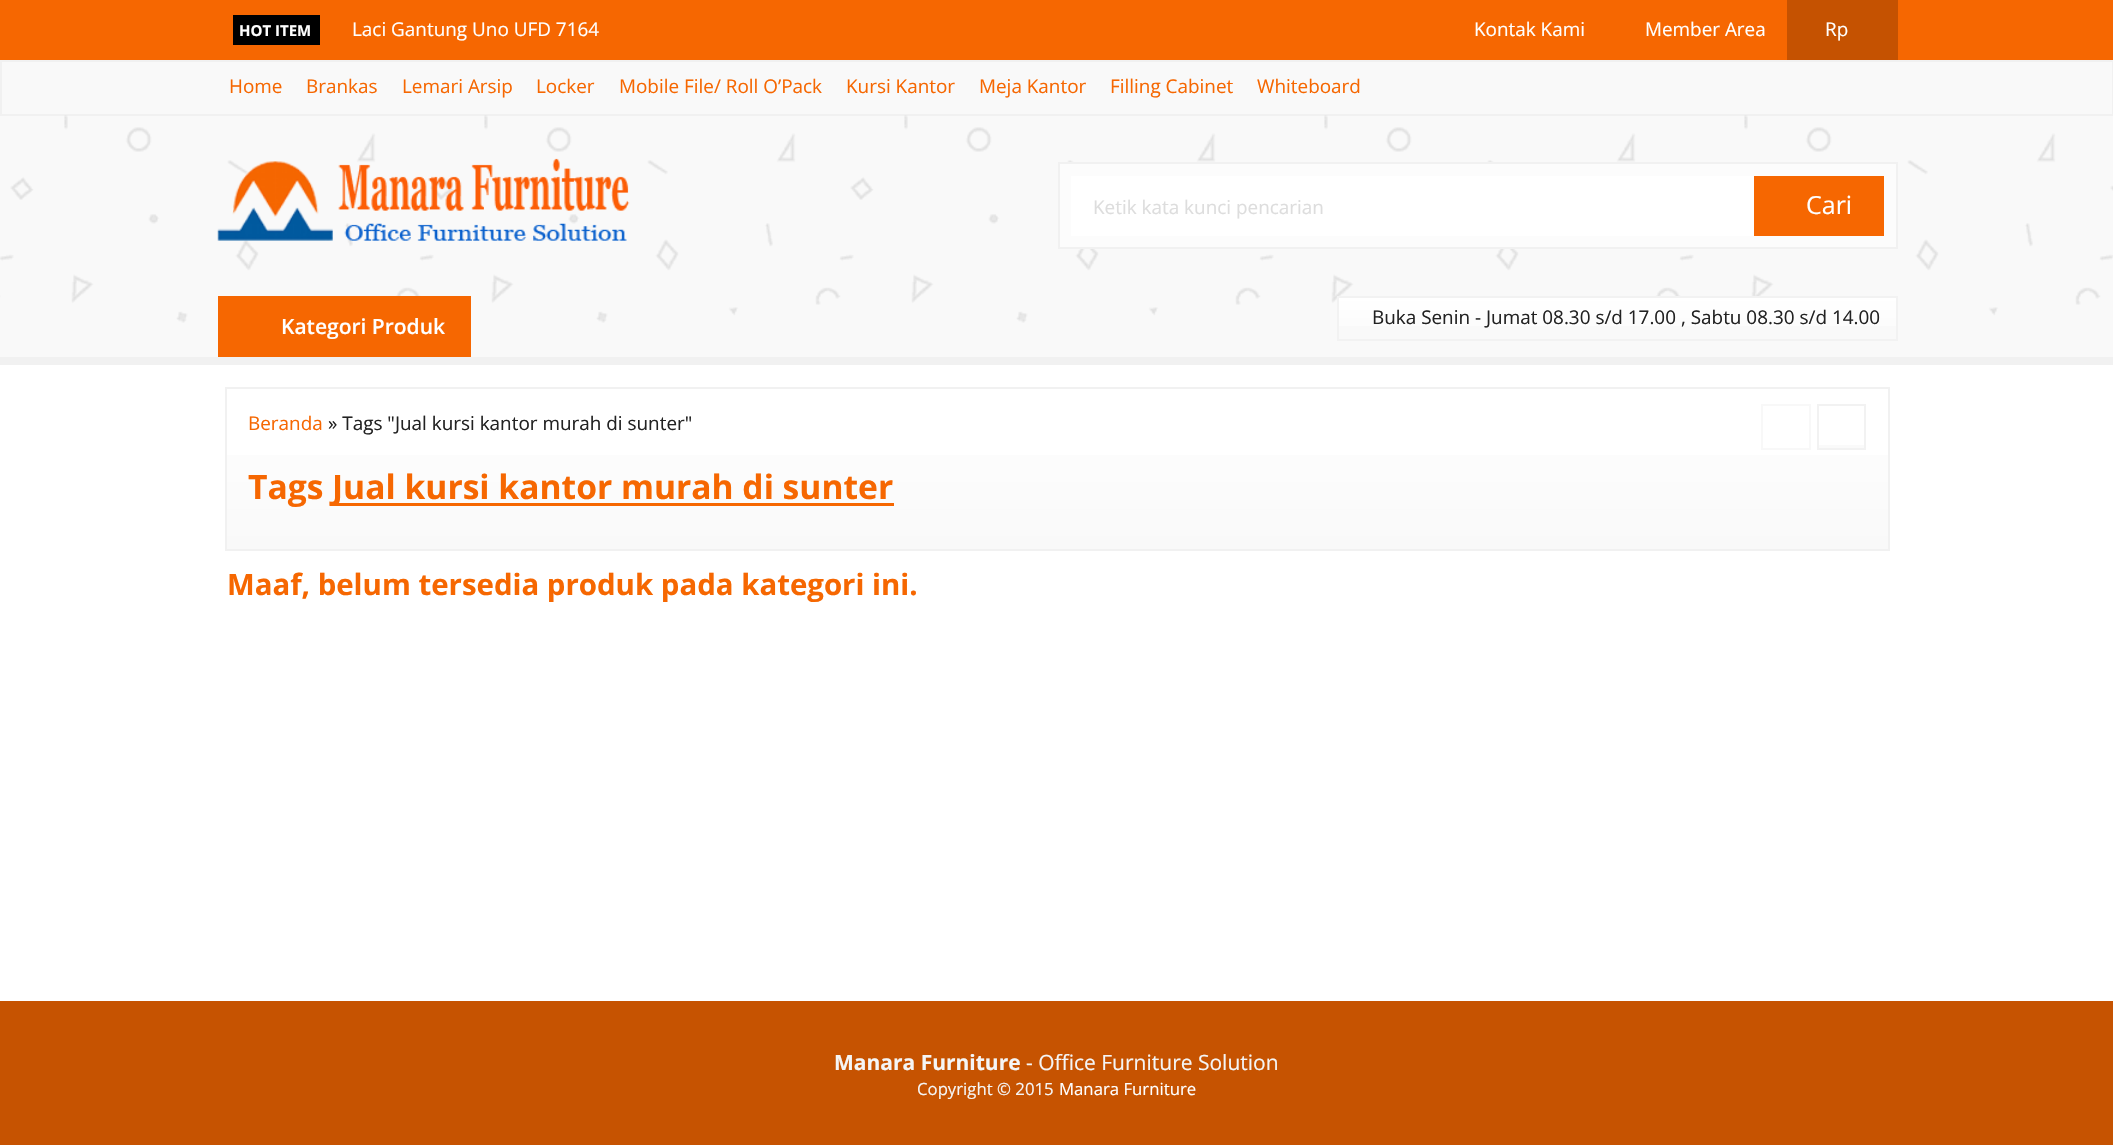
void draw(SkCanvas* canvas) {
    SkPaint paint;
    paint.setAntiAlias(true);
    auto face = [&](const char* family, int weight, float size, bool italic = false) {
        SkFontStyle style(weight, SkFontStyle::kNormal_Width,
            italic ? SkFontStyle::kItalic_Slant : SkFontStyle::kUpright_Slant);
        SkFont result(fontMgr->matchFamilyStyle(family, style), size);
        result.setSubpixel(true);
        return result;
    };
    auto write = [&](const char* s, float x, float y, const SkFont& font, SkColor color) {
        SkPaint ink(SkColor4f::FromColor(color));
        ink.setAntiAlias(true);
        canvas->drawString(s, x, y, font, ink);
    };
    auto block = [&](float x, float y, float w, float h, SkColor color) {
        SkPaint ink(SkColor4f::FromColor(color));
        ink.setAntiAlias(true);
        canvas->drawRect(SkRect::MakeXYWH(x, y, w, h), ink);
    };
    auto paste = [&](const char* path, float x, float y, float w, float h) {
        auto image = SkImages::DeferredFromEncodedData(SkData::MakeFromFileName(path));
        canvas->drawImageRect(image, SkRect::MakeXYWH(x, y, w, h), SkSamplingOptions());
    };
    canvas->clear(SkColorSetRGB(249, 249, 249));
    block(0, 0, 2113, 60, SkColorSetRGB(246, 103, 1));
    block(233, 15, 87, 30, SK_ColorBLACK);
    auto kFont1 = face("Open Sans", 700, 15);
    write("HOT ITEM", 239, 36, kFont1, SK_ColorWHITE);
    auto kFont2 = face("Open Sans", 400, 18.9f);
    write("Laci Gantung Uno UFD 7164", 352, 36, kFont2, SK_ColorWHITE);
    write("Kontak Kami", 1474, 36, kFont2, SK_ColorWHITE);
    write("Member Area", 1645, 36, kFont2, SK_ColorWHITE);
    block(1787, 0, 111, 60, SkColorSetRGB(197, 82, 1));
    write("Rp", 1825, 36, kFont2, SK_ColorWHITE);
    paint.setStyle(SkPaint::kStroke_Style);
    paint.setStrokeWidth(2);
    paint.setColor(SkColorSetRGB(241, 241, 241));
    canvas->drawRect(SkRect::MakeXYWH(1, 61, 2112, 54), paint);
    write("Home", 229, 93, kFont2, SkColorSetRGB(246, 103, 1));
    write("Brankas", 306, 93, kFont2, SkColorSetRGB(246, 103, 1));
    write("Lemari Arsip", 402, 93, kFont2, SkColorSetRGB(246, 103, 1));
    write("Locker", 536, 93, kFont2, SkColorSetRGB(246, 103, 1));
    write("Mobile File/ Roll O’Pack", 619, 93, kFont2, SkColorSetRGB(246, 103, 1));
    write("Kursi Kantor", 846, 93, kFont2, SkColorSetRGB(246, 103, 1));
    write("Meja Kantor", 979, 93, kFont2, SkColorSetRGB(246, 103, 1));
    write("Filling Cabinet", 1110, 93, kFont2, SkColorSetRGB(246, 103, 1));
    write("Whiteboard", 1257, 93, kFont2, SkColorSetRGB(246, 103, 1));
    paste("pic1.png", 0, 115, 2113, 208);
    paste("pic2.png", 217, 158, 413, 83);
    paint.setStyle(SkPaint::kFill_Style);
    paint.setColor(SkColorSetRGB(252, 252, 252));
    canvas->drawRect(SkRect::MakeXYWH(1059, 163, 838, 85), paint);
    paint.setStyle(SkPaint::kStroke_Style);
    paint.setColor(SkColorSetRGB(241, 241, 241));
    canvas->drawRect(SkRect::MakeXYWH(1059, 163, 838, 85), paint);
    block(1071, 176, 683, 60, SK_ColorWHITE);
    write("Ketik kata kunci pencarian", 1093, 214, kFont2, SkColorSetRGB(221, 221, 221));
    block(1754, 176, 130, 60, SkColorSetRGB(246, 103, 1));
    auto kFont3 = face("Open Sans", 400, 25);
    write("Cari", 1806, 214, kFont3, SK_ColorWHITE);
    block(218, 296, 253, 61, SkColorSetRGB(246, 103, 1));
    auto kFont4 = face("Open Sans", 600, 21);
    write("Kategori Produk", 281, 334, kFont4, SK_ColorWHITE);
    paint.setStyle(SkPaint::kFill_Style);
    {
        const SkColor colors[] = {SkColorSetRGB(250, 250, 250), SK_ColorWHITE};
        const float stops[] = {0, 1};
        const SkPoint ends[] = {{1617, 339}, {1617, 297}};
        paint.setShader(SkGradientShader::MakeLinear(ends, colors, stops, 2, SkTileMode::kClamp));
        paint.setAlpha(255);
    }
    canvas->drawRect(SkRect::MakeXYWH(1339, 298, 557, 28), paint);
    paint.setStyle(SkPaint::kStroke_Style);
    paint.setShader(nullptr);
    paint.setColor(SkColorSetRGB(242, 242, 242));
    canvas->drawRect(SkRect::MakeXYWH(1338, 297, 559, 43), paint);
    write("Buka Senin - Jumat 08.30 s/d 17.00 , Sabtu 08.30 s/d 14.00", 1372, 324, kFont2, SkColorSetRGB(34, 34, 34));
    block(0, 365, 2113, 636, SK_ColorWHITE);
    block(0, 357, 2113, 8, SkColorSetRGB(241, 241, 241));
    paint.setStyle(SkPaint::kFill_Style);
    {
        const SkColor colors[] = {SK_ColorWHITE, SkColorSetRGB(249, 249, 249)};
        const float stops[] = {0, 1};
        const SkPoint ends[] = {{1058, 388}, {1058, 549}};
        paint.setShader(SkGradientShader::MakeLinear(ends, colors, stops, 2, SkTileMode::kClamp));
        paint.setAlpha(255);
    }
    canvas->drawRect(SkRect::MakeXYWH(227, 455, 1661, 94), paint);
    paint.setStyle(SkPaint::kStroke_Style);
    paint.setShader(nullptr);
    paint.setColor(SkColorSetRGB(241, 241, 241));
    canvas->drawRect(SkRect::MakeXYWH(226, 388, 1663, 162), paint);
    write("Beranda", 248, 430, kFont2, SkColorSetRGB(246, 103, 1));
    write("» Tags \"Jual kursi kantor murah di sunter\"", 328, 430, kFont2, SkColorSetRGB(34, 34, 34));
    paint.setColor(SkColorSetRGB(248, 248, 248));
    canvas->drawRect(SkRect::MakeXYWH(1762, 405, 48, 44), paint);
    paint.setStyle(SkPaint::kFill_Style);
    {
        const SkColor colors[] = {SkColorSetRGB(250, 250, 250), SK_ColorWHITE};
        const float stops[] = {0, 1};
        const SkPoint ends[] = {{1841, 449}, {1841, 405}};
        paint.setShader(SkGradientShader::MakeLinear(ends, colors, stops, 2, SkTileMode::kClamp));
        paint.setAlpha(255);
    }
    canvas->drawRect(SkRect::MakeXYWH(1819, 445, 45, 3), paint);
    paint.setStyle(SkPaint::kStroke_Style);
    paint.setShader(nullptr);
    paint.setColor(SkColorSetRGB(242, 242, 242));
    canvas->drawRect(SkRect::MakeXYWH(1818, 405, 47, 44), paint);
    auto kFont5 = face("Open Sans", 700, 33.6f);
    write("Tags", 248, 499, kFont5, SkColorSetRGB(246, 103, 1));
    block(333, 503, 561, 3, SkColorSetRGB(246, 103, 1));
    write("Jual kursi kantor murah di sunter", 332, 499, kFont5, SkColorSetRGB(246, 103, 1));
    auto kFont6 = face("Open Sans", 700, 29.4f);
    write("Maaf, belum tersedia produk pada kategori ini.", 227, 595, kFont6, SkColorSetRGB(246, 103, 1));
    block(0, 1001, 2113, 144, SkColorSetRGB(198, 83, 1));
    auto kFont7 = face("Open Sans", 700, 21);
    write("Manara Furniture", 834, 1070, kFont7, SkColorSetRGB(245, 245, 245));
    auto kFont8 = face("Open Sans", 400, 21);
    write("- Office Furniture Solution", 1026, 1070, kFont8, SkColorSetRGB(245, 245, 245));
    auto kFont9 = face("Open Sans", 400, 16.75f);
    write("Copyright © 2015", 917, 1095, kFont9, SkColorSetRGB(245, 245, 245));
    write("Manara Furniture", 1059, 1095, kFont9, SK_ColorWHITE);
}
